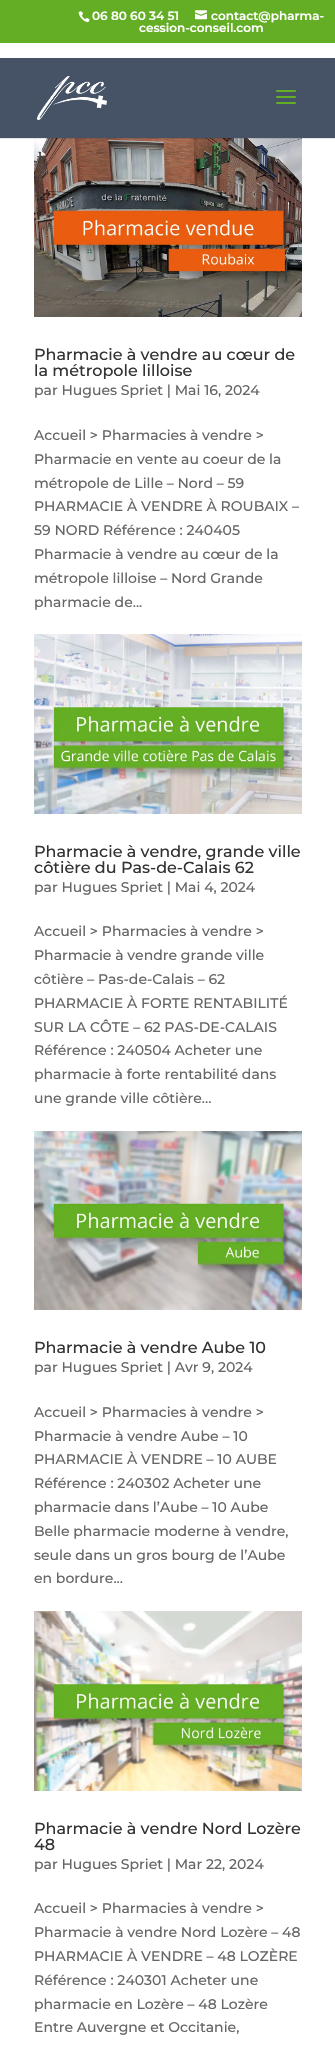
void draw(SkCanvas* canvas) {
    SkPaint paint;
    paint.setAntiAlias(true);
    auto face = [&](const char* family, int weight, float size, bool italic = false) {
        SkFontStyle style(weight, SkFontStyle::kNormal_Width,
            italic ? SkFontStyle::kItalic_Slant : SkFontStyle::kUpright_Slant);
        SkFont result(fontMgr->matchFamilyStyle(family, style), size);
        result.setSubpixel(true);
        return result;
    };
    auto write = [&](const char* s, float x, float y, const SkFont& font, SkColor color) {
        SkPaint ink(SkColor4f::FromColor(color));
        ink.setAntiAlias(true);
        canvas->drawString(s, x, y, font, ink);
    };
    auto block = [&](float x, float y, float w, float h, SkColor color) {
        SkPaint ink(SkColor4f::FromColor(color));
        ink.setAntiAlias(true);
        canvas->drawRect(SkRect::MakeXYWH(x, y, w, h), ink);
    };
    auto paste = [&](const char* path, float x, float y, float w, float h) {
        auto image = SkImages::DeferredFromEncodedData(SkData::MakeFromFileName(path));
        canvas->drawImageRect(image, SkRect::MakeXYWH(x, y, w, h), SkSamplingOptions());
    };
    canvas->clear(SK_ColorWHITE);
    block(0, 0, 335, 43, SkColorSetRGB(99, 174, 37));
    paste("pic1.png", 78, 11, 12, 12);
    auto kFont1 = face("Montserrat", 600, 12);
    write("06 80 60 34 51", 92, 20, kFont1, SK_ColorWHITE);
    paste("pic2.png", 195, 10, 12, 10);
    write("contact@pharma-", 211, 20, kFont1, SK_ColorWHITE);
    write("cession-conseil.com", 139, 32, kFont1, SK_ColorWHITE);
    paste("pic5.png", 34, 138, 268, 179);
    block(0, 138, 335, 1, SkColorSetARGB(26, 0, 0, 0));
    block(0, 58, 335, 80, SkColorSetRGB(70, 83, 102));
    paste("pic3.png", 37, 76, 70, 44);
    paste("pic4.png", 276, 90, 20, 14);
    auto kFont2 = face("Montserrat", 500, 16);
    write("Pharmacie à vendre au cœur de", 34, 360, kFont2, SkColorSetRGB(51, 51, 51));
    write("la métropole lilloise", 34, 376, kFont2, SkColorSetRGB(51, 51, 51));
    auto kFont3 = face("Montserrat", 500, 14);
    write("par Hugues Spriet | Mai 16, 2024", 34, 395, kFont3, SkColorSetRGB(102, 102, 102));
    write("Accueil > Pharmacies à vendre >", 34, 440, kFont3, SkColorSetRGB(102, 102, 102));
    write("Pharmacie en vente au coeur de la", 34, 464, kFont3, SkColorSetRGB(102, 102, 102));
    write("métropole de Lille – Nord – 59", 34, 488, kFont3, SkColorSetRGB(102, 102, 102));
    write("PHARMACIE À VENDRE À ROUBAIX –", 34, 511, kFont3, SkColorSetRGB(102, 102, 102));
    write("59 NORD Référence : 240405", 34, 535, kFont3, SkColorSetRGB(102, 102, 102));
    write("Pharmacie à vendre au cœur de la", 34, 559, kFont3, SkColorSetRGB(102, 102, 102));
    write("métropole lilloise – Nord Grande", 34, 583, kFont3, SkColorSetRGB(102, 102, 102));
    write("pharmacie de...", 34, 607, kFont3, SkColorSetRGB(102, 102, 102));
    paste("pic6.png", 34, 634, 268, 180);
    write("Pharmacie à vendre, grande ville", 34, 857, kFont2, SkColorSetRGB(51, 51, 51));
    write("côtière du Pas-de-Calais 62", 34, 873, kFont2, SkColorSetRGB(51, 51, 51));
    write("par Hugues Spriet | Mai 4, 2024", 34, 892, kFont3, SkColorSetRGB(102, 102, 102));
    write("Accueil > Pharmacies à vendre >", 34, 936, kFont3, SkColorSetRGB(102, 102, 102));
    write("Pharmacie à vendre grande ville", 34, 960, kFont3, SkColorSetRGB(102, 102, 102));
    write("côtière – Pas-de-Calais – 62", 34, 984, kFont3, SkColorSetRGB(102, 102, 102));
    write("PHARMACIE À FORTE RENTABILITÉ", 34, 1008, kFont3, SkColorSetRGB(102, 102, 102));
    write("SUR LA CÔTE – 62 PAS-DE-CALAIS", 34, 1032, kFont3, SkColorSetRGB(102, 102, 102));
    write("Référence : 240504 Acheter une", 34, 1055, kFont3, SkColorSetRGB(102, 102, 102));
    write("pharmacie à forte rentabilité dans", 34, 1079, kFont3, SkColorSetRGB(102, 102, 102));
    write("une grande ville côtière...", 34, 1103, kFont3, SkColorSetRGB(102, 102, 102));
    paste("pic7.png", 34, 1131, 268, 179);
    write("Pharmacie à vendre Aube 10", 34, 1353, kFont2, SkColorSetRGB(51, 51, 51));
    write("par Hugues Spriet | Avr 9, 2024", 34, 1372, kFont3, SkColorSetRGB(102, 102, 102));
    write("Accueil > Pharmacies à vendre >", 34, 1417, kFont3, SkColorSetRGB(102, 102, 102));
    write("Pharmacie à vendre Aube – 10", 34, 1441, kFont3, SkColorSetRGB(102, 102, 102));
    write("PHARMACIE À VENDRE – 10 AUBE", 34, 1464, kFont3, SkColorSetRGB(102, 102, 102));
    write("Référence : 240302 Acheter une", 34, 1488, kFont3, SkColorSetRGB(102, 102, 102));
    write("pharmacie dans l’Aube – 10 Aube", 34, 1512, kFont3, SkColorSetRGB(102, 102, 102));
    write("Belle pharmacie moderne à vendre,", 34, 1536, kFont3, SkColorSetRGB(102, 102, 102));
    write("seule dans un gros bourg de l’Aube", 34, 1560, kFont3, SkColorSetRGB(102, 102, 102));
    write("en bordure...", 34, 1583, kFont3, SkColorSetRGB(102, 102, 102));
    paste("pic8.png", 34, 1611, 268, 180);
    write("Pharmacie à vendre Nord Lozère", 34, 1834, kFont2, SkColorSetRGB(51, 51, 51));
    write("48", 34, 1850, kFont2, SkColorSetRGB(51, 51, 51));
    write("par Hugues Spriet | Mar 22, 2024", 34, 1869, kFont3, SkColorSetRGB(102, 102, 102));
    write("Accueil > Pharmacies à vendre >", 34, 1913, kFont3, SkColorSetRGB(102, 102, 102));
    write("Pharmacie à vendre Nord Lozère – 48", 34, 1937, kFont3, SkColorSetRGB(102, 102, 102));
    write("PHARMACIE À VENDRE – 48 LOZÈRE", 34, 1961, kFont3, SkColorSetRGB(102, 102, 102));
    write("Référence : 240301 Acheter une", 34, 1985, kFont3, SkColorSetRGB(102, 102, 102));
    write("pharmacie en Lozère – 48 Lozère", 34, 2009, kFont3, SkColorSetRGB(102, 102, 102));
    write("Entre Auvergne et Occitanie,", 34, 2032, kFont3, SkColorSetRGB(102, 102, 102));
}
